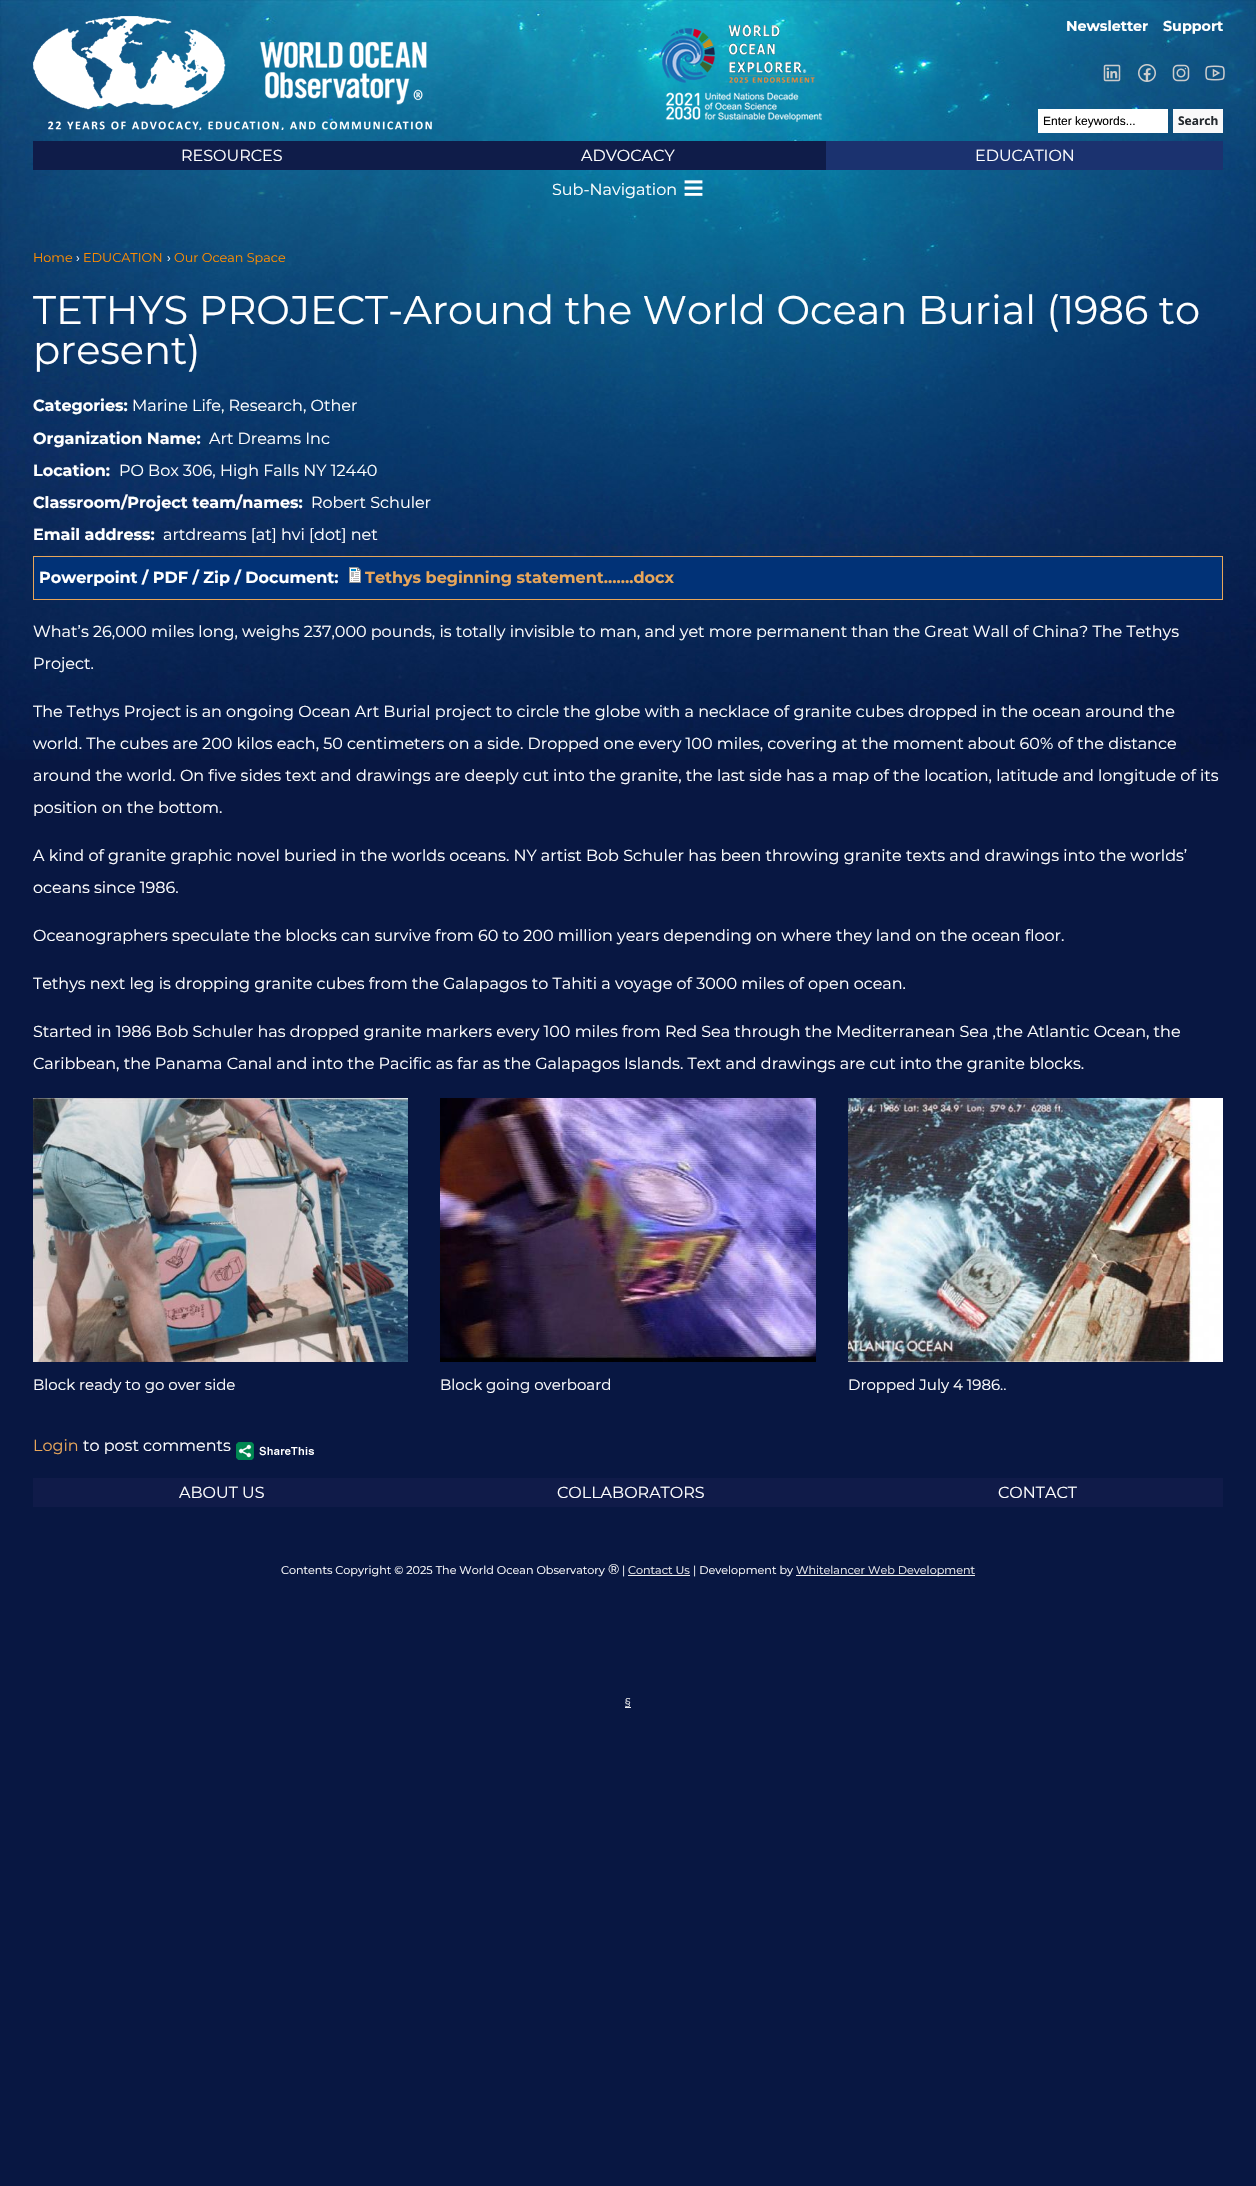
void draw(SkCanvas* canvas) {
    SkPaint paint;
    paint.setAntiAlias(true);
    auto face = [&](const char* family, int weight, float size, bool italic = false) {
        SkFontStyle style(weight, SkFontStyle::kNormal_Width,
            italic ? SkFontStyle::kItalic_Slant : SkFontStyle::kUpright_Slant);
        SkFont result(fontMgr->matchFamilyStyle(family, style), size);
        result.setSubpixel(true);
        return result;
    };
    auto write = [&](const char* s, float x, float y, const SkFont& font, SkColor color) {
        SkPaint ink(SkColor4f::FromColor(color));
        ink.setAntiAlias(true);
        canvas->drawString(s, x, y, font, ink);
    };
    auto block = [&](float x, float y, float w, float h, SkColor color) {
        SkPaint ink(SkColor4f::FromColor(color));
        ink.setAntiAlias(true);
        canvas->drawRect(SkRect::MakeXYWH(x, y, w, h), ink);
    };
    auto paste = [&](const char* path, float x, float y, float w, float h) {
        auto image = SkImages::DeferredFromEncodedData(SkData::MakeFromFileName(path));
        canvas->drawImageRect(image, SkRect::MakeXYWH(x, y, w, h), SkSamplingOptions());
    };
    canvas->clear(SkColorSetRGB(8, 23, 66));
    paste("pic1.png", 0, 0, 1256, 760);
    paste("pic2.png", 33, 16, 399, 114);
    paste("pic3.png", 659, 25, 163, 97);
    auto kFont1 = face("Montserrat", 700, 14.25f);
    write("Newsletter", 1066, 31, kFont1, SK_ColorWHITE);
    write("Support", 1163, 31, kFont1, SK_ColorWHITE);
    paste("pic4.png", 1103, 64, 18, 18);
    paste("pic5.png", 1138, 64, 18, 18);
    paste("pic6.png", 1172, 64, 18, 18);
    paste("pic7.png", 1205, 65, 20, 16);
    block(1038, 109, 130, 24, SK_ColorWHITE);
    auto kFont2 = face("Liberation Sans", 400, 12);
    write("Enter keywords...", 1043, 125, kFont2, SK_ColorBLACK);
    block(1173, 133, 50, 1, SkColorSetARGB(10, 27, 31, 35));
    block(1173, 110, 50, 23, SkColorSetRGB(248, 248, 249));
    block(1173, 109, 50, 1, SkColorSetRGB(250, 250, 251));
    auto kFont3 = face("Noto Sans", 700, 12);
    write("Search", 1178, 125, kFont3, SkColorSetRGB(36, 41, 46));
    block(33, 141, 793, 29, SkColorSetRGB(15, 28, 73));
    auto kFont4 = face("Montserrat", 400, 16);
    write("RESOURCES", 181, 161, kFont4, SK_ColorWHITE);
    write("ADVOCACY", 581, 161, kFont4, SK_ColorWHITE);
    block(826, 141, 397, 29, SkColorSetRGB(27, 50, 111));
    write("EDUCATION", 975, 161, kFont4, SK_ColorWHITE);
    write("Sub-Navigation", 552, 195, kFont4, SK_ColorWHITE);
    auto kFont5 = face("Liberation Sans", 400, 36);
    write("≡", 683, 200, kFont5, SK_ColorWHITE);
    auto kFont6 = face("Montserrat", 400, 12.75f);
    write("Home", 33, 262, kFont6, SkColorSetRGB(255, 140, 0));
    write("›", 76, 262, kFont6, SK_ColorWHITE);
    write("EDUCATION", 83, 262, kFont6, SkColorSetRGB(255, 140, 0));
    write("›", 167, 262, kFont6, SK_ColorWHITE);
    write("Our Ocean Space", 174, 262, kFont6, SkColorSetRGB(255, 140, 0));
    auto kFont7 = face("Montserrat", 400, 40);
    write("TETHYS PROJECT-Around the World Ocean Burial (1986 to", 33, 324, kFont7, SK_ColorWHITE);
    write("present)", 33, 364, kFont7, SK_ColorWHITE);
    auto kFont8 = face("Montserrat", 700, 16);
    write("Categories:", 33, 411, kFont8, SK_ColorWHITE);
    write("Marine Life, Research, Other", 132, 411, kFont4, SK_ColorWHITE);
    write("Organization Name:", 33, 444, kFont8, SK_ColorWHITE);
    write("Art Dreams Inc", 209, 444, kFont4, SK_ColorWHITE);
    write("Location:", 33, 476, kFont8, SK_ColorWHITE);
    write("PO Box 306, High Falls NY 12440", 119, 476, kFont4, SK_ColorWHITE);
    write("Classroom/Project team/names:", 33, 508, kFont8, SK_ColorWHITE);
    write("Robert Schuler", 311, 508, kFont4, SK_ColorWHITE);
    write("Email address:", 33, 540, kFont8, SK_ColorWHITE);
    write("artdreams [at] hvi [dot] net", 163, 540, kFont4, SK_ColorWHITE);
    paint.setColor(SkColorSetRGB(1, 50, 119));
    canvas->drawRect(SkRect::MakeXYWH(33.5f, 556.5f, 1189, 43), paint);
    paint.setStyle(SkPaint::kStroke_Style);
    paint.setStrokeWidth(1);
    paint.setColor(SkColorSetRGB(232, 166, 90));
    canvas->drawRect(SkRect::MakeXYWH(33.5f, 556.5f, 1189, 43), paint);
    write("Powerpoint / PDF / Zip / Document:", 39, 583, kFont8, SK_ColorWHITE);
    paste("pic8.png", 349, 567, 12, 16);
    write("Tethys beginning statement…….docx", 365, 583, kFont8, SkColorSetRGB(232, 166, 90));
    write("What’s 26,000 miles long, weighs 237,000 pounds, is totally invisible to man, and yet more permanent than the Great Wall of China? The Tethys", 33, 637, kFont4, SK_ColorWHITE);
    write("Project.", 33, 669, kFont4, SK_ColorWHITE);
    write("The Tethys Project is an ongoing Ocean Art Burial project to circle the globe with a necklace of granite cubes dropped in the ocean around the", 33, 717, kFont4, SK_ColorWHITE);
    write("world. The cubes are 200 kilos each, 50 centimeters on a side. Dropped one every 100 miles, covering at the moment about 60% of the distance", 33, 749, kFont4, SK_ColorWHITE);
    write("around the world. On five sides text and drawings are deeply cut into the granite, the last side has a map of the location, latitude and longitude of its", 33, 781, kFont4, SK_ColorWHITE);
    write("position on the bottom.", 33, 813, kFont4, SK_ColorWHITE);
    write("A kind of granite graphic novel buried in the worlds oceans. NY artist Bob Schuler has been throwing granite texts and drawings into the worlds’", 33, 861, kFont4, SK_ColorWHITE);
    write("oceans since 1986.", 33, 893, kFont4, SK_ColorWHITE);
    write("Oceanographers speculate the blocks can survive from 60 to 200 million years depending on where they land on the ocean floor.", 33, 941, kFont4, SK_ColorWHITE);
    write("Tethys next leg is dropping granite cubes from the Galapagos to Tahiti a voyage of 3000 miles of open ocean.", 33, 989, kFont4, SK_ColorWHITE);
    write("Started in 1986 Bob Schuler has dropped granite markers every 100 miles from Red Sea through the Mediterranean Sea ,the Atlantic Ocean, the", 33, 1037, kFont4, SK_ColorWHITE);
    write("Caribbean, the Panama Canal and into the Pacific as far as the Galapagos Islands. Text and drawings are cut into the granite blocks.", 33, 1069, kFont4, SK_ColorWHITE);
    paste("pic9.png", 33, 1098, 375, 264);
    auto kFont9 = face("Montserrat", 400, 15);
    write("Block ready to go over side", 33, 1390, kFont9, SK_ColorWHITE);
    paste("pic10.png", 440, 1098, 376, 264);
    write("Block going overboard", 440, 1390, kFont9, SK_ColorWHITE);
    paste("pic11.png", 848, 1098, 375, 264);
    write("Dropped July 4 1986..", 848, 1390, kFont9, SK_ColorWHITE);
    write("Login", 33, 1451, kFont4, SkColorSetRGB(232, 166, 90));
    write("to post comments", 83, 1451, kFont4, SK_ColorWHITE);
    paste("pic12.png", 236, 1442, 78, 18);
    block(33, 1478, 1190, 29, SkColorSetRGB(16, 27, 73));
    write("ABOUT US", 179, 1498, kFont4, SK_ColorWHITE);
    write("COLLABORATORS", 557, 1498, kFont4, SK_ColorWHITE);
    write("CONTACT", 998, 1498, kFont4, SK_ColorWHITE);
    auto kFont10 = face("Montserrat", 400, 11.2f);
    write("Contents Copyright © 2025 The World Ocean Observatory", 281, 1574, kFont10, SK_ColorWHITE);
    auto kFont11 = face("Montserrat", 400, 14);
    write("®", 608, 1574, kFont11, SK_ColorWHITE);
    write("|", 622, 1574, kFont10, SK_ColorWHITE);
    write("Contact Us", 628, 1574, kFont10, SkColorSetRGB(238, 238, 238));
    block(628, 1575, 62, 1, SkColorSetRGB(238, 238, 238));
    write("| Development by", 693, 1574, kFont10, SK_ColorWHITE);
    block(796, 1575, 179, 1, SkColorSetRGB(238, 238, 238));
    write("Whitelancer Web Development", 796, 1574, kFont10, SkColorSetRGB(238, 238, 238));
    block(625, 1707, 6, 1, SkColorSetRGB(238, 238, 238));
    write("§", 625, 1706, kFont10, SkColorSetRGB(238, 238, 238));
}
